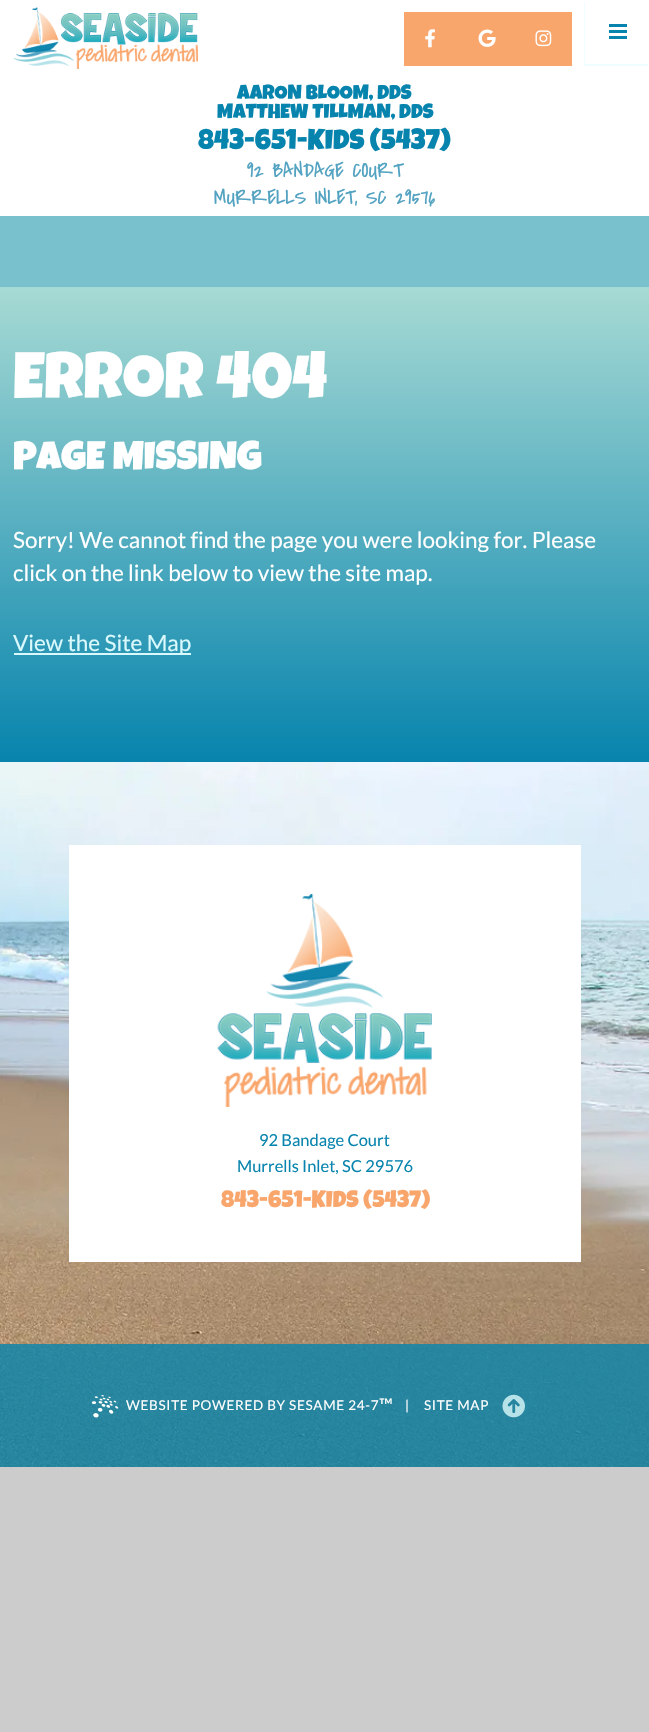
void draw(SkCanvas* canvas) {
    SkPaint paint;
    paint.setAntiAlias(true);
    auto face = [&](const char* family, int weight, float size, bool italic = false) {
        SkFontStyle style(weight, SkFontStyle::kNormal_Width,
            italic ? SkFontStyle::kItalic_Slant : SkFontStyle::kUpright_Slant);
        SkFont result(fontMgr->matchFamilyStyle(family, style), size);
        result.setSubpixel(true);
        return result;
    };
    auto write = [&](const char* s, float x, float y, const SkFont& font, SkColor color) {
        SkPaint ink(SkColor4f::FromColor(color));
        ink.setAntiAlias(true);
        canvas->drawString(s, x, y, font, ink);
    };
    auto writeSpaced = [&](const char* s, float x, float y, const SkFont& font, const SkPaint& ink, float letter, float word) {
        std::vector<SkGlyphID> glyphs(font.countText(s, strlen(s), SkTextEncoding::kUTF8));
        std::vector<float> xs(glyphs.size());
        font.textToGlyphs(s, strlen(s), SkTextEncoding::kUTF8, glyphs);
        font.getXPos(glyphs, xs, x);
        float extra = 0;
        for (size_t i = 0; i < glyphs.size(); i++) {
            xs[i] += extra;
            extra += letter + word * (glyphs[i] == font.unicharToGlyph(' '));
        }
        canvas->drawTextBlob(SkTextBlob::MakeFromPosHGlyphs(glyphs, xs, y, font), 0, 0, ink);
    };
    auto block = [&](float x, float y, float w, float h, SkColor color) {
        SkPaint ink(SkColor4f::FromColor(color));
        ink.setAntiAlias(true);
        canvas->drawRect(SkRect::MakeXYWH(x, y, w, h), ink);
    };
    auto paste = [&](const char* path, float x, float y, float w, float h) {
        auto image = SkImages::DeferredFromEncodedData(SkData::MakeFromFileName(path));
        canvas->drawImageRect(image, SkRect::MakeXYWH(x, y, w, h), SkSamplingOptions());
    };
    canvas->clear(SkColorSetRGB(204, 204, 204));
    block(0, 0, 649, 216, SK_ColorWHITE);
    block(404, 12, 168, 54, SkColorSetRGB(249, 166, 109));
    paste("pic1.png", 425, 29, 10, 19);
    paste("pic2.png", 478, 29, 18, 18);
    paste("pic3.png", 535, 30, 17, 17);
    paint.setColor(SkColorSetRGB(240, 253, 254));
    canvas->drawPath(SkPathBuilder().moveTo(584, 2).lineTo(584, 66).lineTo(648, 66).lineTo(648, 64).lineTo(585, 64).lineTo(585, 2).close().detach(), paint);
    block(609, 24, 18, 3, SkColorSetRGB(7, 132, 173));
    block(609, 30, 18, 3, SkColorSetRGB(7, 132, 173));
    block(609, 36, 18, 3, SkColorSetRGB(7, 132, 173));
    paste("pic4.png", 13, 7, 185, 62);
    auto kFont1 = face("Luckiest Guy", 400, 20.25f);
    write("AARON BLOOM, DDS", 237, 99, kFont1, SkColorSetRGB(7, 132, 173));
    write("MATTHEW TILLMAN, DDS", 217, 118, kFont1, SkColorSetRGB(7, 132, 173));
    auto kFont2 = face("Luckiest Guy", 400, 28.1f);
    write("843-651-KIDS (5437)", 198, 149, kFont2, SkColorSetRGB(7, 132, 173));
    auto kFont3 = face("Covered By Your Grace", 400, 21.4f);
    write("92 BANDAGE COURT", 247, 177, kFont3, SkColorSetRGB(82, 162, 193));
    write("MURRELLS INLET, SC 29576", 214, 204, kFont3, SkColorSetRGB(82, 162, 193));
    block(0, 216, 649, 71, SkColorSetRGB(121, 193, 204));
    {
        const SkColor colors[] = {SkColorSetRGB(167, 218, 212), SkColorSetRGB(7, 132, 173)};
        const float stops[] = {0, 1};
        const SkPoint ends[] = {{325, 286}, {325, 762}};
        paint.setShader(SkGradientShader::MakeLinear(ends, colors, stops, 2, SkTileMode::kClamp));
        paint.setAlpha(255);
    }
    canvas->drawRect(SkRect::MakeXYWH(0, 287, 649, 475), paint);
    auto kFont4 = face("Luckiest Guy", 400, 65);
    write("ERROR 404", 13, 398, kFont4, SK_ColorWHITE);
    auto kFont5 = face("Luckiest Guy", 400, 39.5f);
    write("PAGE MISSING", 13, 469, kFont5, SK_ColorWHITE);
    auto kFont6 = face("Lato", 400, 22.5f);
    write("Sorry! We cannot find the page you were looking for. Please", 13, 548, kFont6, SK_ColorWHITE);
    write("click on the link below to view the site map.", 13, 581, kFont6, SK_ColorWHITE);
    block(14, 653, 177, 2, SkColorSetRGB(218, 249, 253));
    write("View the Site Map", 13, 651, kFont6, SkColorSetRGB(218, 249, 253));
    paste("pic5.png", 0, 762, 649, 705);
    block(69, 845, 512, 417, SK_ColorWHITE);
    paste("pic6.png", 217, 894, 215, 213);
    auto kFont7 = face("Lato", 400, 16.5f);
    write("92 Bandage Court", 259, 1146, kFont7, SkColorSetRGB(7, 132, 173));
    write("Murrells Inlet, SC 29576", 237, 1172, kFont7, SkColorSetRGB(7, 132, 173));
    auto kFont8 = face("Luckiest Guy", 400, 23.25f);
    write("843-651-KIDS (5437)", 221, 1207, kFont8, SkColorSetRGB(249, 166, 109));
    block(0, 1344, 649, 123, SkColorSetARGB(204, 7, 132, 173));
    paste("pic7.png", 91, 1395, 28, 23);
    auto kFont9 = face("Lato", 400, 13.5f);
    paint.setShader(nullptr);
    paint.setColor(SK_ColorWHITE);
    writeSpaced("WEBSITE POWERED BY SESAME 24-7", 126, 1410, kFont9, paint, 0.7f, 0);
    auto kFont10 = face("Lato", 400, 19);
    writeSpaced("™", 379, 1412, kFont10, paint, 0.7f, 0);
    write("|", 405, 1410, kFont9, SK_ColorWHITE);
    writeSpaced("SITE MAP", 424, 1410, kFont9, paint, 0.7f, 0);
    paste("pic8.png", 502, 1394, 23, 24);
}
